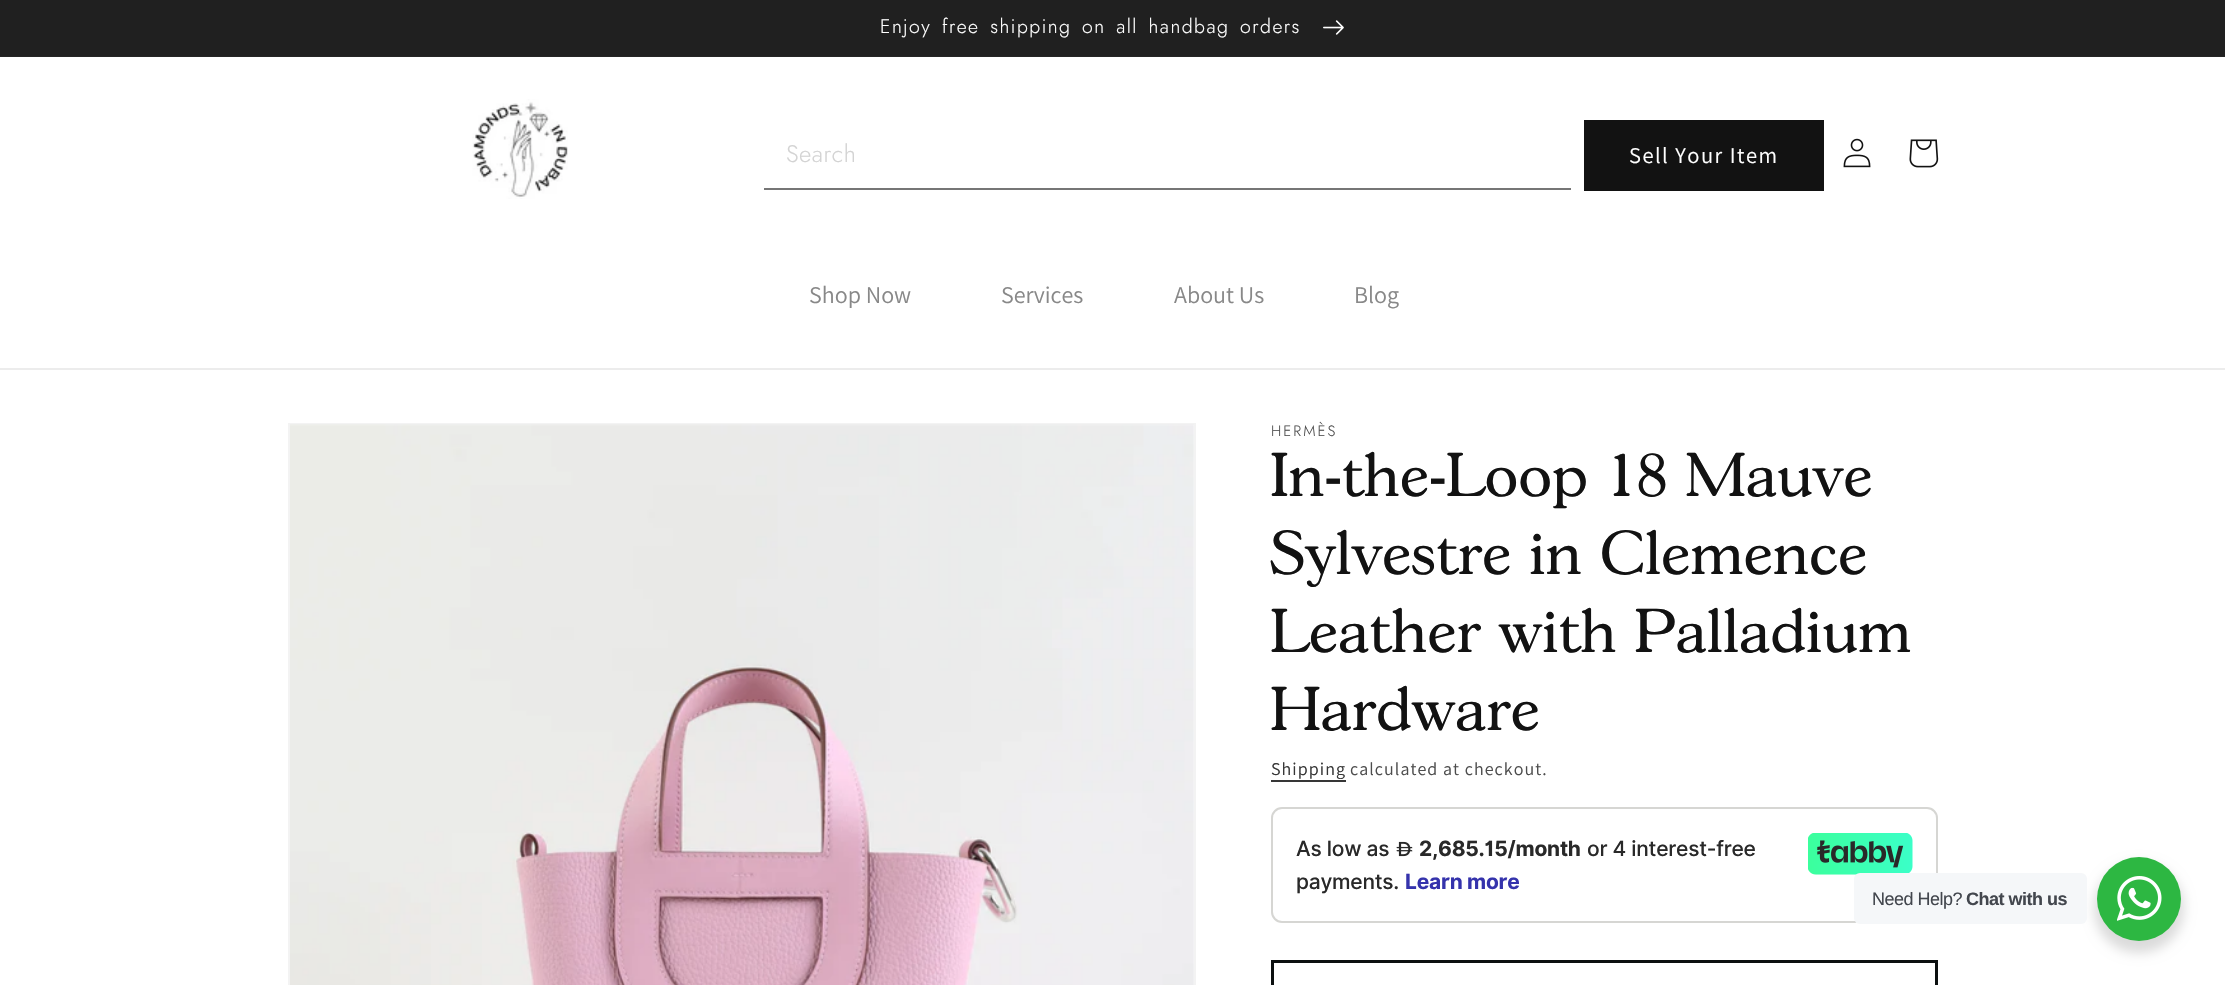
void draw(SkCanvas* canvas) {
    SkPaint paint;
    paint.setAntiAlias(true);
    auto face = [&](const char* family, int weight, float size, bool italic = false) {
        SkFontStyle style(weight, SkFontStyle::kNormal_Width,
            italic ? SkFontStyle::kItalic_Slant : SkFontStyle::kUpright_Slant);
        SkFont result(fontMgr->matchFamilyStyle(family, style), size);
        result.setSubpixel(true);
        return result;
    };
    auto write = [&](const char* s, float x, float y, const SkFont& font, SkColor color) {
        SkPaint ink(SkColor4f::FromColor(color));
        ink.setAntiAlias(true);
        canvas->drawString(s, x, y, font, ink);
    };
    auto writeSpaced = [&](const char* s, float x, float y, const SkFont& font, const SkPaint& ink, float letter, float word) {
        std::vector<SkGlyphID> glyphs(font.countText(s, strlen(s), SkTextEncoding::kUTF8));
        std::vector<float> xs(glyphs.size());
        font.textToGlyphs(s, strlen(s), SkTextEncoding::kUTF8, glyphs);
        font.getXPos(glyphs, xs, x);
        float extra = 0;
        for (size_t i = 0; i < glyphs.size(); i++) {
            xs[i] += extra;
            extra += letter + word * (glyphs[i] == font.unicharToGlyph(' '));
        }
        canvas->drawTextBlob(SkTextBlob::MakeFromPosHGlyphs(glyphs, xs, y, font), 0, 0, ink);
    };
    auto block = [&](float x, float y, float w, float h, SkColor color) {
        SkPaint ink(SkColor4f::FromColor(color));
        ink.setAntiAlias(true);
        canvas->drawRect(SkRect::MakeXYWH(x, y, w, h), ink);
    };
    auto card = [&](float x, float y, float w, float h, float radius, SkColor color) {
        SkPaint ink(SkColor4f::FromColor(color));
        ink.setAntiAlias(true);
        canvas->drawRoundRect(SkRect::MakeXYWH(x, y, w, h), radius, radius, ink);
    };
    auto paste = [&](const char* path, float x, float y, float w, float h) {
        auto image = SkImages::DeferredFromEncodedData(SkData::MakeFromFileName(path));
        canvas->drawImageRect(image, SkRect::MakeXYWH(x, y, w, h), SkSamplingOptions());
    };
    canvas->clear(SK_ColorWHITE);
    block(0, 56, 2225, 1, SkColorSetRGB(37, 37, 37));
    block(0, 0, 2225, 56, SkColorSetRGB(32, 32, 32));
    auto kFont1 = face("Jost", 300, 19.5f);
    paint.setColor(SK_ColorWHITE);
    writeSpaced("Enjoy free shipping on all handbag orders", 880, 33, kFont1, paint, 1.5f, 3.25f);
    paste("pic1.png", 1323, 20, 21, 15);
    block(0, 368, 2225, 2, SkColorSetRGB(236, 236, 236));
    paste("pic2.png", 472, 99, 96, 100);
    block(764, 188, 807, 2, SkColorSetRGB(118, 118, 118));
    auto kFont2 = face("Jost", 300, 24);
    paint.setColor(SkColorSetRGB(211, 211, 211));
    writeSpaced("Search", 786, 162, kFont2, paint, 0.5f, 0);
    block(1584, 120, 240, 71, SkColorSetRGB(18, 18, 18));
    auto kFont3 = face("Assistant", 400, 22.5f);
    paint.setColor(SK_ColorWHITE);
    writeSpaced("Sell Your Item", 1629, 163, kFont3, paint, 1.5f, 0);
    paste("pic3.png", 1843, 138, 28, 30);
    paste("pic4.png", 1909, 139, 30, 29);
    auto kFont4 = face("Assistant", 400, 24);
    write("Shop Now", 809, 303, kFont4, SkColorSetRGB(136, 136, 136));
    write("Services", 1001, 303, kFont4, SkColorSetRGB(136, 136, 136));
    write("About Us", 1174, 303, kFont4, SkColorSetRGB(136, 136, 136));
    write("Blog", 1354, 303, kFont4, SkColorSetRGB(136, 136, 136));
    paint.setStyle(SkPaint::kStroke_Style);
    paint.setStrokeWidth(2);
    paint.setColor(SkColorSetRGB(243, 243, 243));
    canvas->drawRect(SkRect::MakeXYWH(289, 424, 906, 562), paint);
    paste("pic5.png", 290, 424, 904, 561);
    auto kFont5 = face("Jost", 300, 15);
    paint.setStyle(SkPaint::kFill_Style);
    paint.setColor(SkColorSetRGB(77, 77, 77));
    writeSpaced("HERMÈS", 1271, 436, kFont5, paint, 2, 0);
    auto kFont6 = face("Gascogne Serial", 400, 60);
    paint.setColor(SkColorSetRGB(18, 18, 18));
    writeSpaced("In-the-Loop 18 Mauve", 1271, 496, kFont6, paint, 0.9f, 0);
    writeSpaced("Sylvestre in Clemence", 1271, 574, kFont6, paint, 0.9f, 0);
    writeSpaced("Leather with Palladium", 1271, 652, kFont6, paint, 0.9f, 0);
    writeSpaced("Hardware", 1271, 730, kFont6, paint, 0.9f, 0);
    auto kFont7 = face("Assistant", 400, 18);
    paint.setColor(SkColorSetRGB(54, 54, 54));
    writeSpaced("Shipping", 1271, 775, kFont7, paint, 1.05f, 0);
    block(1271, 780, 75, 2, SkColorSetRGB(54, 54, 54));
    paint.setColor(SkColorSetRGB(77, 77, 77));
    writeSpaced("calculated at checkout.", 1350, 775, kFont7, paint, 1.05f, 0);
    paint.setStyle(SkPaint::kStroke_Style);
    paint.setColor(SkColorSetRGB(214, 214, 211));
    canvas->drawRoundRect(SkRect::MakeXYWH(1272, 808, 665, 114), 10, 10, paint);
    auto kFont8 = face("Inter", 500, 21);
    paint.setStyle(SkPaint::kFill_Style);
    paint.setColor(SkColorSetRGB(41, 41, 41));
    writeSpaced("As low as", 1296, 856, kFont8, paint, -0.25f, 0);
    paste("pic6.png", 1396, 841, 17, 16);
    auto kFont9 = face("Inter", 700, 21);
    writeSpaced("2,685.15/month", 1419, 856, kFont9, paint, -0.25f, 0);
    writeSpaced("or 4 interest-free", 1587, 856, kFont8, paint, -0.25f, 0);
    writeSpaced("payments.", 1296, 889, kFont8, paint, -0.25f, 0);
    paint.setColor(SkColorSetRGB(53, 51, 172));
    writeSpaced("Learn more", 1405, 889, kFont9, paint, -0.25f, 0);
    paste("pic7.png", 1808, 833, 105, 42);
    paint.setStyle(SkPaint::kStroke_Style);
    paint.setStrokeWidth(3);
    paint.setColor(SkColorSetRGB(12, 16, 16));
    canvas->drawRect(SkRect::MakeXYWH(1272.5f, 961.5f, 664, 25), paint);
    paint.setStyle(SkPaint::kFill_Style);
    paint.setColor(SkColorSetARGB(36, 0, 0, 0));
    paint.setMaskFilter(SkMaskFilter::MakeBlur(kNormal_SkBlurStyle, 6));
    canvas->drawRoundRect(SkRect::MakeXYWH(2094, 863, 90, 90), 45, 45, paint);
    paint.setMaskFilter(nullptr);
    card(1854, 873, 233, 51, 6, SkColorSetRGB(245, 247, 249));
    auto kFont10 = face("Liberation Sans", 400, 18);
    paint.setColor(SkColorSetRGB(67, 71, 78));
    writeSpaced("Need Help?", 1872, 905, kFont10, paint, -0.5f, 0);
    auto kFont11 = face("Liberation Sans", 700, 18);
    writeSpaced("Chat with us", 1966, 905, kFont11, paint, -0.5f, 0);
    paint.setColor(SkColorSetRGB(45, 183, 66));
    canvas->drawCircle(2139, 899, 42, paint);
    paste("pic8.png", 2117, 876, 45, 45);
}
